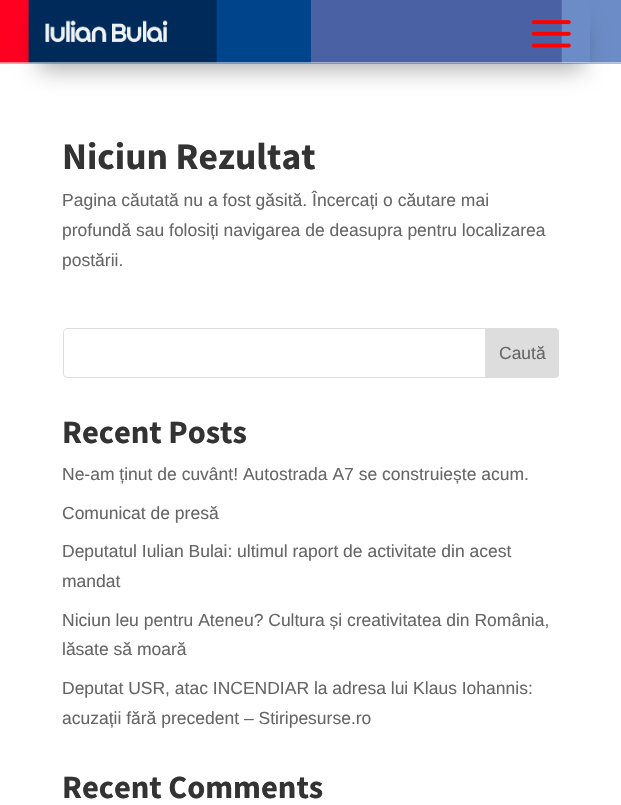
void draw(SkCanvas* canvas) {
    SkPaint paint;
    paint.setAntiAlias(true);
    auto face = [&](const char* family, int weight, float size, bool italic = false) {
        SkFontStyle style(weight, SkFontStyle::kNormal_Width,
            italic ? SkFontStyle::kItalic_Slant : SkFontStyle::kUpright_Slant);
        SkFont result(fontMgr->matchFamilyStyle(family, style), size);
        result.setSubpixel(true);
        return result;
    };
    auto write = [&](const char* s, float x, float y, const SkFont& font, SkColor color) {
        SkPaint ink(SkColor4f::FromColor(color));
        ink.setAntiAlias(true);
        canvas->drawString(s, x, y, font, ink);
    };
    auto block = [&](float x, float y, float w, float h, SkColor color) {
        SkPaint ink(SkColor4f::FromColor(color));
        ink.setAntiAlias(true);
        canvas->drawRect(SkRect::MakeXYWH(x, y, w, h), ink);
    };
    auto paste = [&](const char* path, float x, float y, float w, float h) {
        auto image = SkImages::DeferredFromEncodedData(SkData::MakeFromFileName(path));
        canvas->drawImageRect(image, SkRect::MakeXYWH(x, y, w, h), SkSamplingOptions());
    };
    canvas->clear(SK_ColorWHITE);
    paste("pic1.png", 0, 0, 621, 63);
    block(0, 63, 621, 1, SkColorSetRGB(172, 191, 206));
    canvas->save();
    canvas->clipPath(SkPathBuilder(SkPathFillType::kEvenOdd).moveTo(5, 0).lineTo(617, 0).lineTo(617, 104).lineTo(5, 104).close().moveTo(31, 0).lineTo(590, 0).lineTo(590, 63).lineTo(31, 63).close().detach(), true);
    paint.setColor(SkColorSetARGB(77, 0, 0, 0));
    paint.setMaskFilter(SkMaskFilter::MakeBlur(kNormal_SkBlurStyle, 11));
    canvas->drawRect(SkRect::MakeXYWH(39, 23, 544, 47), paint);
    paint.setMaskFilter(nullptr);
    canvas->restore();
    paste("pic2.png", 45, 20, 123, 23);
    paste("pic3.png", 531, 20, 40, 28);
    auto kFont1 = face("Source Sans Pro", 700, 37.5f);
    write("Niciun Rezultat", 62, 169, kFont1, SkColorSetRGB(51, 51, 51));
    auto kFont2 = face("Liberation Sans", 400, 17.5f);
    write("Pagina căutată nu a fost găsită. Încercați o căutare mai", 62, 206, kFont2, SkColorSetRGB(102, 102, 102));
    write("profundă sau folosiți navigarea de deasupra pentru localizarea", 62, 236, kFont2, SkColorSetRGB(102, 102, 102));
    write("postării.", 62, 266, kFont2, SkColorSetRGB(102, 102, 102));
    paint.setStyle(SkPaint::kStroke_Style);
    paint.setStrokeWidth(1);
    paint.setColor(SkColorSetRGB(221, 221, 221));
    canvas->drawRoundRect(SkRect::MakeXYWH(63.5f, 328.5f, 495, 49), 3.5f, 3.5f, paint);
    paint.setStyle(SkPaint::kFill_Style);
    canvas->drawPath(SkPathBuilder().moveTo(485.5f, 328.5f).lineTo(555, 328.5f).cubicTo(557, 328.5f, 558.5f, 330, 558.5f, 332).lineTo(558.5f, 374).cubicTo(558.5f, 376, 557, 377.5f, 555, 377.5f).lineTo(485.5f, 377.5f).close().detach(), paint);
    paint.setStyle(SkPaint::kStroke_Style);
    canvas->drawPath(SkPathBuilder().moveTo(485.5f, 328.5f).lineTo(555, 328.5f).cubicTo(557, 328.5f, 558.5f, 330, 558.5f, 332).lineTo(558.5f, 374).cubicTo(558.5f, 376, 557, 377.5f, 555, 377.5f).lineTo(485.5f, 377.5f).close().detach(), paint);
    write("Caută", 499, 359, kFont2, SkColorSetRGB(102, 102, 102));
    auto kFont3 = face("Source Sans Pro", 700, 32.5f);
    write("Recent Posts", 62, 443, kFont3, SkColorSetRGB(51, 51, 51));
    write("Ne-am ținut de cuvânt! Autostrada A7 se construiește acum.", 62, 480, kFont2, SkColorSetRGB(102, 102, 102));
    write("Comunicat de presă", 62, 519, kFont2, SkColorSetRGB(102, 102, 102));
    write("Deputatul Iulian Bulai: ultimul raport de activitate din acest", 62, 557, kFont2, SkColorSetRGB(102, 102, 102));
    write("mandat", 62, 587, kFont2, SkColorSetRGB(102, 102, 102));
    write("Niciun leu pentru Ateneu? Cultura și creativitatea din România,", 62, 626, kFont2, SkColorSetRGB(102, 102, 102));
    write("lăsate să moară", 62, 655, kFont2, SkColorSetRGB(102, 102, 102));
    write("Deputat USR, atac INCENDIAR la adresa lui Klaus Iohannis:", 62, 694, kFont2, SkColorSetRGB(102, 102, 102));
    write("acuzații fără precedent – Stiripesurse.ro", 62, 724, kFont2, SkColorSetRGB(102, 102, 102));
    write("Recent Comments", 62, 798, kFont3, SkColorSetRGB(51, 51, 51));
}
